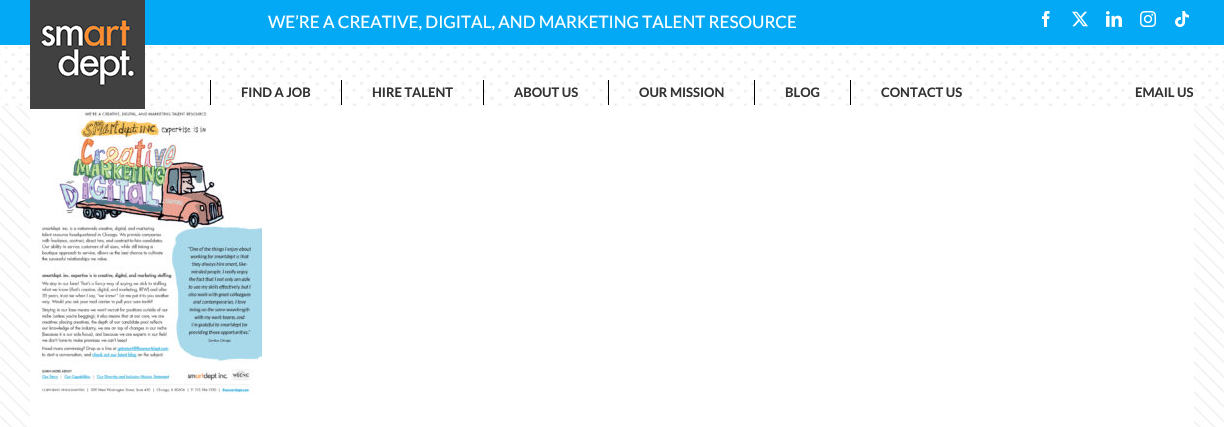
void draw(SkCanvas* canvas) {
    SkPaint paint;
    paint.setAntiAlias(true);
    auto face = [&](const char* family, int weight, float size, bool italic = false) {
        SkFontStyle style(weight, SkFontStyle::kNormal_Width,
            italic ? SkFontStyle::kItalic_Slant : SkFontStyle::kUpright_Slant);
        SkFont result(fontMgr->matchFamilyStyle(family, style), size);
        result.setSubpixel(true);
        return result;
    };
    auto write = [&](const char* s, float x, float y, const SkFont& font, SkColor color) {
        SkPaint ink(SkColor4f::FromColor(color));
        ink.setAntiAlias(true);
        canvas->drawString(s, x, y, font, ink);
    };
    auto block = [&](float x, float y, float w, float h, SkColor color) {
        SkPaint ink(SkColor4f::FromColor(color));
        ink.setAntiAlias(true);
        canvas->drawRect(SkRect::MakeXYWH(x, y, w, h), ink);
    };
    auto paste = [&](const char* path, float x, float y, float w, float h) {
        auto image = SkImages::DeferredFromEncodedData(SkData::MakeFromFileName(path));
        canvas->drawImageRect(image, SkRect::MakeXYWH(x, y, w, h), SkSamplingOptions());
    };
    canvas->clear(SK_ColorWHITE);
    paste("pic1.png", 0, 106, 1224, 321);
    block(0, 0, 1224, 45, SkColorSetRGB(3, 169, 244));
    auto kFont1 = face("Lato", 400, 17);
    write("WE’RE A CREATIVE, DIGITAL, AND MARKETING TALENT RESOURCE", 268, 28, kFont1, SK_ColorWHITE);
    paste("pic2.png", 1042, 11, 8, 16);
    paste("pic3.png", 1072, 11, 16, 16);
    paste("pic4.png", 1106, 11, 16, 16);
    paste("pic5.png", 1140, 11, 16, 16);
    paste("pic6.png", 1175, 11, 14, 16);
    paste("pic7.png", 0, 46, 1224, 60);
    block(30, 106, 1164, 321, SK_ColorWHITE);
    paste("pic9.png", 38, 106, 224, 288);
    paste("pic8.png", 30, 0, 115, 109);
    block(210, 80, 1, 25, SK_ColorBLACK);
    auto kFont2 = face("Lato", 700, 13);
    write("FIND A JOB", 241, 97, kFont2, SkColorSetRGB(51, 51, 51));
    block(341, 80, 1, 25, SK_ColorBLACK);
    write("HIRE TALENT", 372, 97, kFont2, SkColorSetRGB(51, 51, 51));
    block(483, 80, 1, 25, SK_ColorBLACK);
    write("ABOUT US", 514, 97, kFont2, SkColorSetRGB(51, 51, 51));
    block(608, 80, 1, 25, SK_ColorBLACK);
    write("OUR MISSION", 639, 97, kFont2, SkColorSetRGB(51, 51, 51));
    block(754, 80, 1, 25, SK_ColorBLACK);
    write("BLOG", 785, 97, kFont2, SkColorSetRGB(51, 51, 51));
    block(850, 80, 1, 25, SK_ColorBLACK);
    write("CONTACT US", 881, 97, kFont2, SkColorSetRGB(51, 51, 51));
    write("EMAIL US", 1135, 97, kFont2, SkColorSetRGB(51, 51, 51));
}
